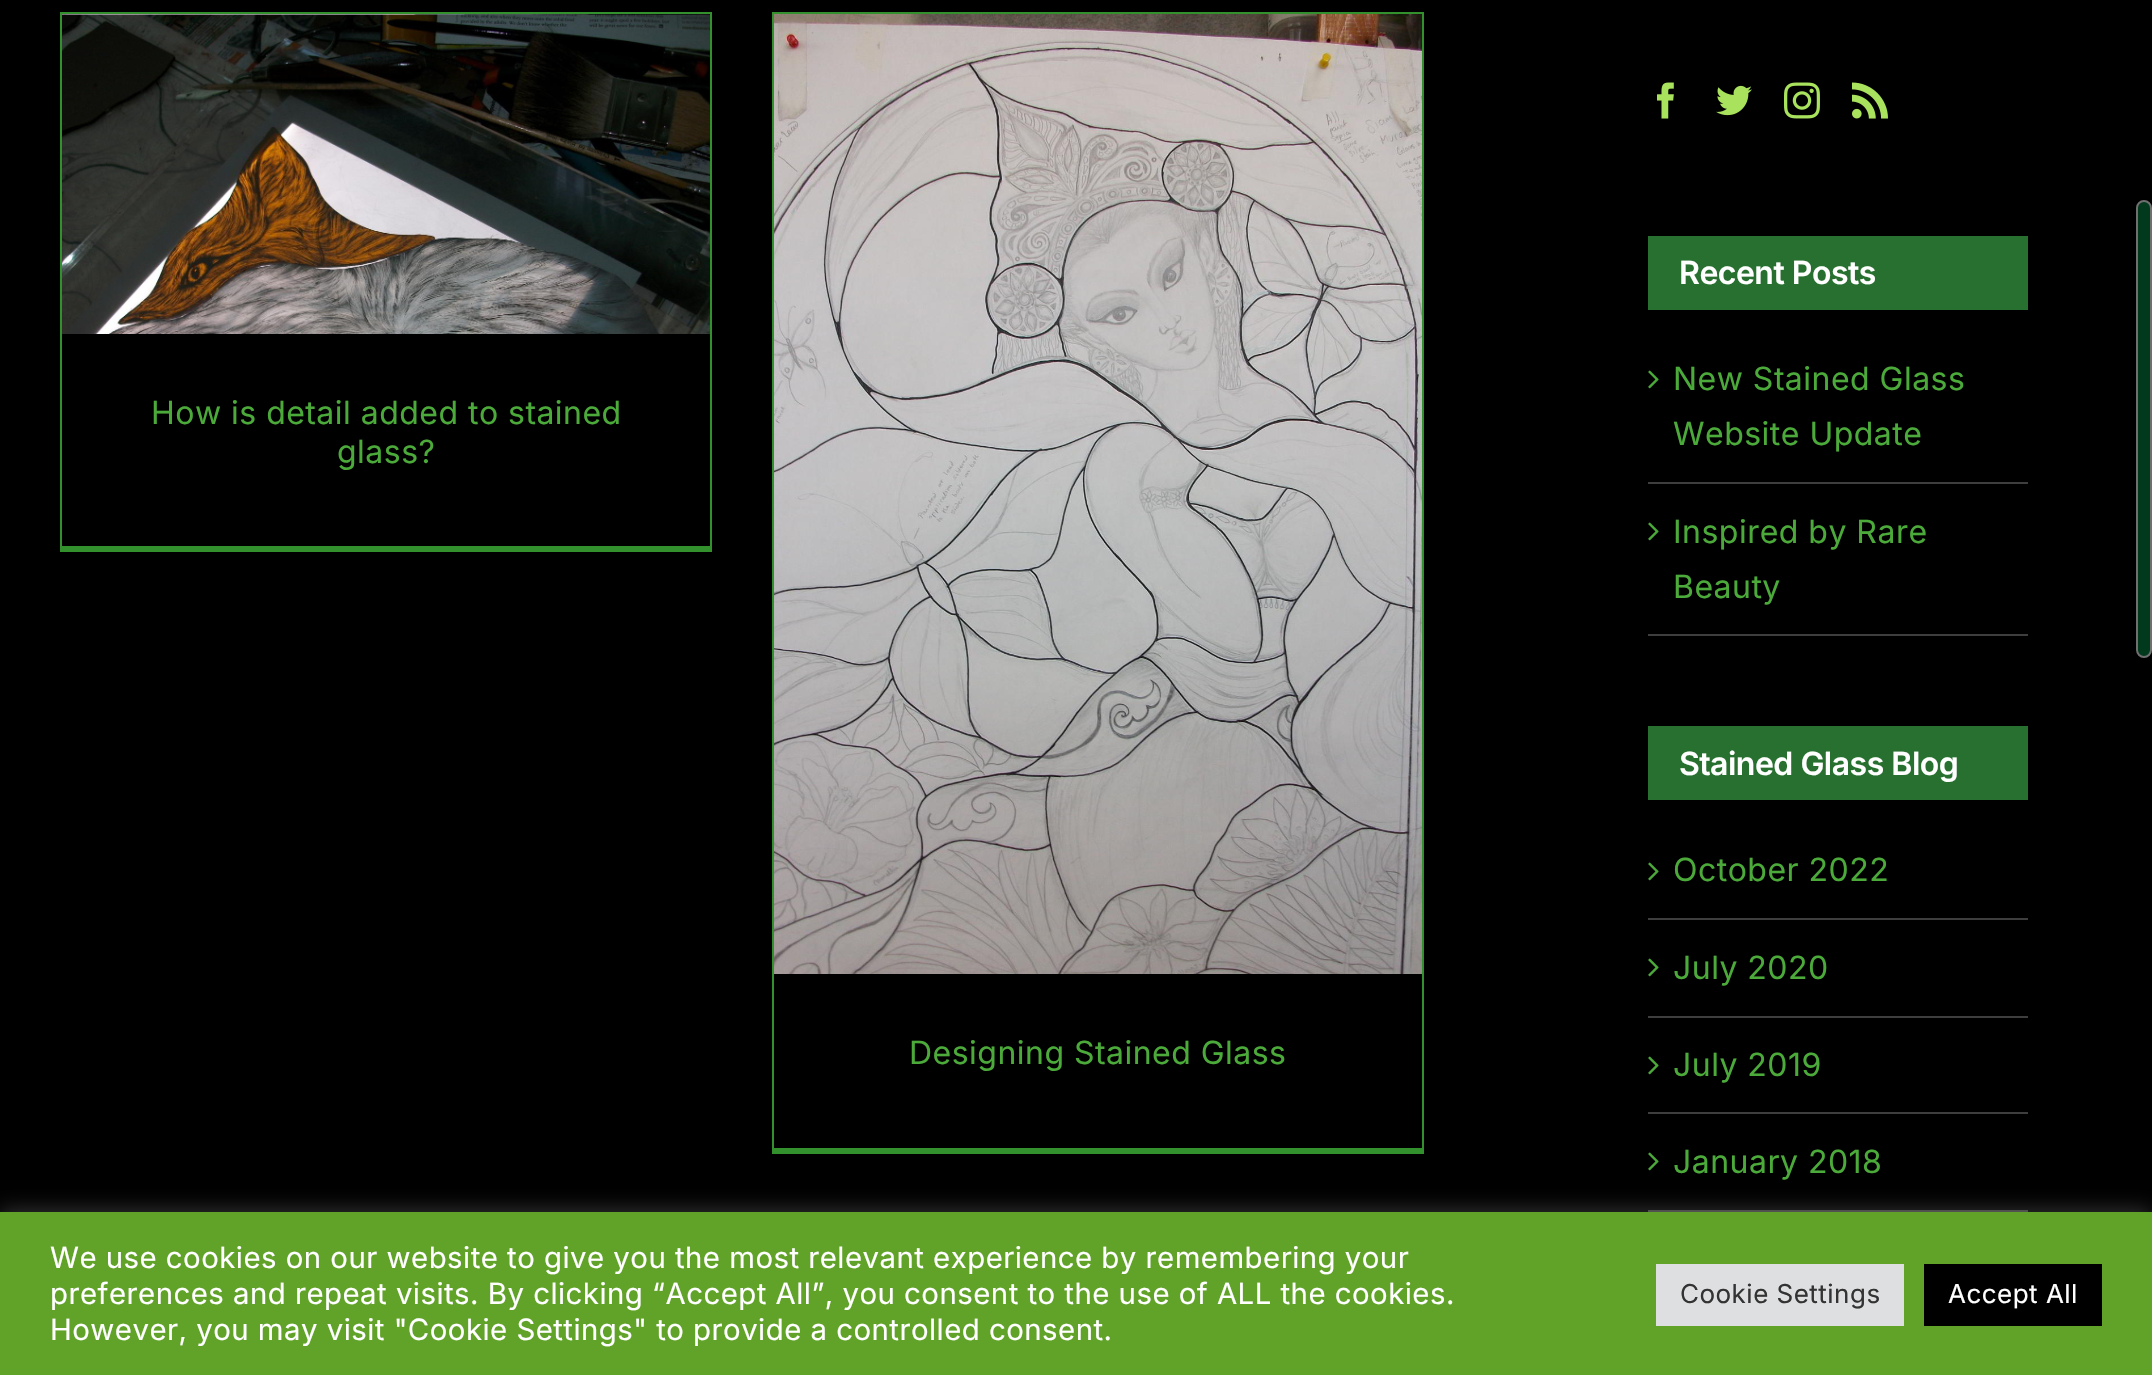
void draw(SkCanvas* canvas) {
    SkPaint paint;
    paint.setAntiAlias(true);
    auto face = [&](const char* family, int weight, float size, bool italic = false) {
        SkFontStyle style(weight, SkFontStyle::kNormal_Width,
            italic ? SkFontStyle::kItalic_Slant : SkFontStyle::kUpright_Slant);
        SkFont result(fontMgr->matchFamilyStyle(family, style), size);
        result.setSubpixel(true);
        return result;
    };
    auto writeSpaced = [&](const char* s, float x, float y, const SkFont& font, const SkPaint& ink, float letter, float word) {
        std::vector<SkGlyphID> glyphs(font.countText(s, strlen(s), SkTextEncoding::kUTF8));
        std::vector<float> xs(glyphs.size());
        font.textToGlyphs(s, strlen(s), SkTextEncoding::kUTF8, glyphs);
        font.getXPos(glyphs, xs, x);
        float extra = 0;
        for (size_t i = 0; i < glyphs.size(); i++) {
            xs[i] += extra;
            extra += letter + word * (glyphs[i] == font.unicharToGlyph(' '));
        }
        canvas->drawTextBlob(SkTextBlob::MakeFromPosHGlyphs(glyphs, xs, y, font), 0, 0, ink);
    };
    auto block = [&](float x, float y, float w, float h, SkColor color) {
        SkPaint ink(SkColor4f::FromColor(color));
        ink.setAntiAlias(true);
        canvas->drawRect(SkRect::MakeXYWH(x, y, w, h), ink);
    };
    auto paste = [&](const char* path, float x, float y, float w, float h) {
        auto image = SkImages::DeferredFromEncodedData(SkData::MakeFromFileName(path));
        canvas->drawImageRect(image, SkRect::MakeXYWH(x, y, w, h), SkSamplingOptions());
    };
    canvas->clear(SK_ColorBLACK);
    block(60, 12, 652, 2, SkColorSetRGB(51, 145, 45));
    block(710, 12, 2, 540, SkColorSetRGB(51, 145, 45));
    block(60, 546, 652, 6, SkColorSetRGB(51, 145, 45));
    block(60, 12, 2, 540, SkColorSetRGB(51, 145, 45));
    paste("pic1.png", 62, 14, 648, 320);
    auto kFont1 = face("Inter", 400, 32);
    paint.setColor(SkColorSetRGB(75, 170, 58));
    writeSpaced("How is detail added to stained", 151, 424, kFont1, paint, 0.48f, 0);
    writeSpaced("glass?", 337, 463, kFont1, paint, 0.48f, 0);
    block(772, 12, 652, 2, SkColorSetRGB(51, 145, 45));
    block(1422, 12, 2, 1142, SkColorSetRGB(51, 145, 45));
    block(772, 1148, 652, 6, SkColorSetRGB(51, 145, 45));
    block(772, 12, 2, 1142, SkColorSetRGB(51, 145, 45));
    paste("pic2.png", 774, 14, 648, 960);
    writeSpaced("Designing Stained Glass", 909, 1064, kFont1, paint, 0.48f, 0);
    paste("pic3.png", 1657, 82, 17, 37);
    paste("pic4.png", 1716, 85, 36, 31);
    paste("pic5.png", 1784, 82, 36, 37);
    paste("pic6.png", 1852, 82, 36, 37);
    block(1648, 236, 380, 74, SkColorSetRGB(40, 112, 48));
    auto kFont2 = face("Inter", 600, 32);
    paint.setColor(SK_ColorWHITE);
    writeSpaced("Recent Posts", 1679, 284, kFont2, paint, -0.5f, 0);
    block(1648, 482, 380, 2, SkColorSetRGB(62, 62, 62));
    paste("pic7.png", 1648, 370, 11, 19);
    paint.setColor(SkColorSetRGB(75, 170, 58));
    writeSpaced("New Stained Glass", 1673, 390, kFont1, paint, 0.48f, 0);
    writeSpaced("Website Update", 1673, 445, kFont1, paint, 0.48f, 0);
    block(1648, 634, 380, 2, SkColorSetRGB(62, 62, 62));
    paste("pic7.png", 1648, 522, 11, 19);
    writeSpaced("Inspired by Rare", 1673, 543, kFont1, paint, 0.48f, 0);
    writeSpaced("Beauty", 1673, 598, kFont1, paint, 0.48f, 0);
    block(1648, 726, 380, 74, SkColorSetRGB(40, 112, 48));
    paint.setColor(SK_ColorWHITE);
    writeSpaced("Stained Glass Blog", 1679, 775, kFont2, paint, -0.5f, 0);
    block(1648, 918, 380, 2, SkColorSetRGB(62, 62, 62));
    paste("pic7.png", 1648, 862, 11, 19);
    paint.setColor(SkColorSetRGB(75, 170, 58));
    writeSpaced("October 2022", 1673, 881, kFont1, paint, 0.48f, 0);
    block(1648, 1016, 380, 2, SkColorSetRGB(62, 62, 62));
    paste("pic7.png", 1648, 958, 11, 19);
    writeSpaced("July 2020", 1673, 979, kFont1, paint, 0.48f, 0);
    block(1648, 1112, 380, 2, SkColorSetRGB(62, 62, 62));
    paste("pic7.png", 1648, 1056, 11, 19);
    writeSpaced("July 2019", 1673, 1076, kFont1, paint, 0.48f, 0);
    block(1648, 1210, 380, 2, SkColorSetRGB(62, 62, 62));
    paste("pic7.png", 1648, 1152, 11, 19);
    writeSpaced("January 2018", 1673, 1173, kFont1, paint, 0.48f, 0);
    paint.setColor(SkColorSetRGB(0, 57, 28));
    canvas->drawRoundRect(SkRect::MakeXYWH(2137, 201, 14, 456), 7, 7, paint);
    paint.setStyle(SkPaint::kStroke_Style);
    paint.setStrokeWidth(2);
    paint.setColor(SkColorSetRGB(111, 111, 111));
    canvas->drawRoundRect(SkRect::MakeXYWH(2137, 201, 14, 456), 7, 7, paint);
    paint.setStyle(SkPaint::kFill_Style);
    paint.setColor(SkColorSetARGB(77, 172, 171, 171));
    paint.setMaskFilter(SkMaskFilter::MakeBlur(kNormal_SkBlurStyle, 10));
    canvas->drawRect(SkRect::MakeXYWH(0, 1210, 2152, 164), paint);
    paint.setMaskFilter(nullptr);
    block(0, 1212, 2152, 163, SkColorSetRGB(97, 162, 41));
    auto kFont3 = face("Inter", 400, 29.35f);
    paint.setColor(SK_ColorWHITE);
    writeSpaced("We use cookies on our website to give you the most relevant experience by remembering your", 50, 1268, kFont3, paint, 0.48f, 0);
    writeSpaced("preferences and repeat visits. By clicking “Accept All”, you consent to the use of ALL the cookies.", 50, 1304, kFont3, paint, 0.48f, 0);
    writeSpaced("However, you may visit \"Cookie Settings\" to provide a controlled consent.", 50, 1340, kFont3, paint, 0.48f, 0);
    block(1656, 1264, 248, 62, SkColorSetRGB(222, 223, 224));
    auto kFont4 = face("Inter", 400, 26);
    paint.setColor(SkColorSetRGB(51, 51, 51));
    writeSpaced("Cookie Settings", 1680, 1303, kFont4, paint, 0.48f, 0);
    block(1924, 1264, 178, 62, SK_ColorBLACK);
    paint.setColor(SK_ColorWHITE);
    writeSpaced("Accept All", 1948, 1303, kFont4, paint, 0.48f, 0);
}
